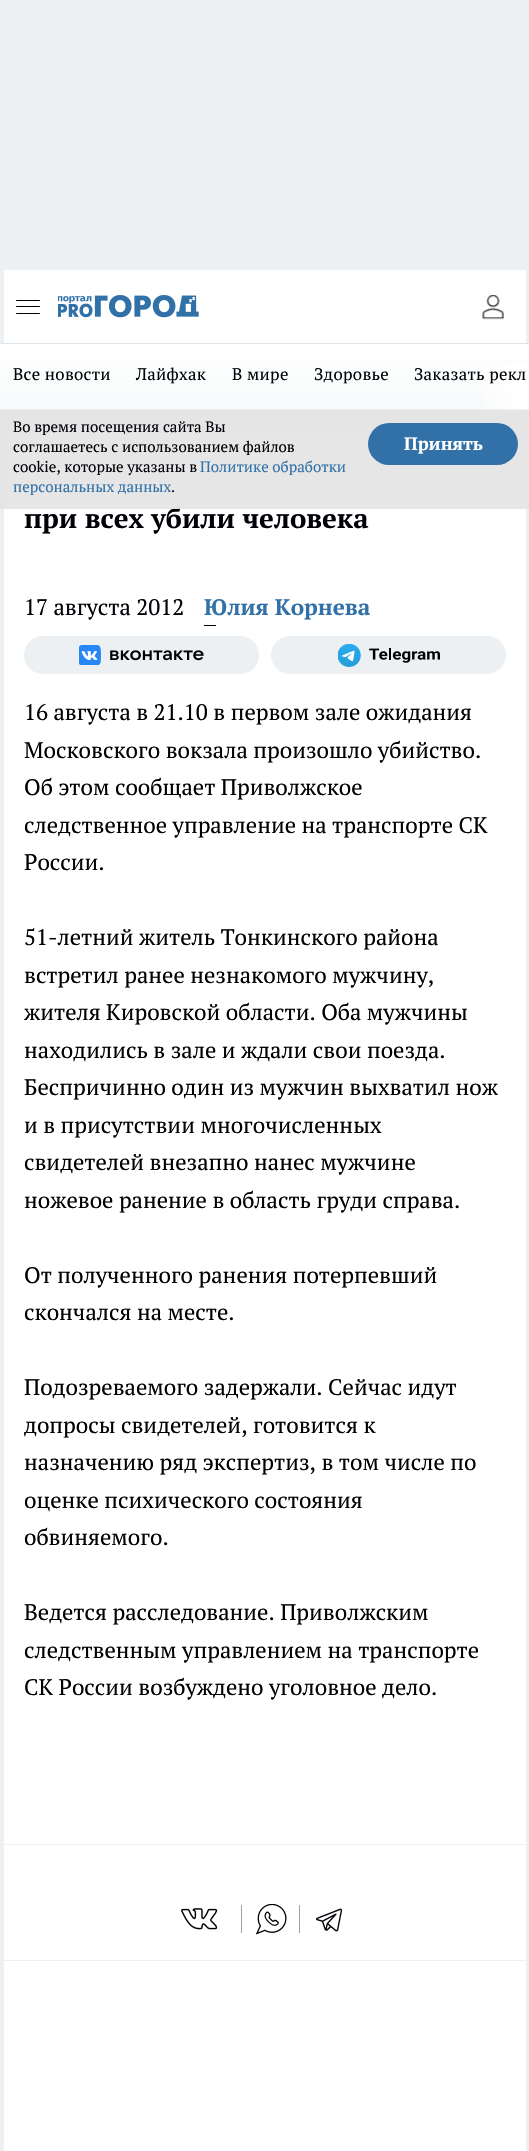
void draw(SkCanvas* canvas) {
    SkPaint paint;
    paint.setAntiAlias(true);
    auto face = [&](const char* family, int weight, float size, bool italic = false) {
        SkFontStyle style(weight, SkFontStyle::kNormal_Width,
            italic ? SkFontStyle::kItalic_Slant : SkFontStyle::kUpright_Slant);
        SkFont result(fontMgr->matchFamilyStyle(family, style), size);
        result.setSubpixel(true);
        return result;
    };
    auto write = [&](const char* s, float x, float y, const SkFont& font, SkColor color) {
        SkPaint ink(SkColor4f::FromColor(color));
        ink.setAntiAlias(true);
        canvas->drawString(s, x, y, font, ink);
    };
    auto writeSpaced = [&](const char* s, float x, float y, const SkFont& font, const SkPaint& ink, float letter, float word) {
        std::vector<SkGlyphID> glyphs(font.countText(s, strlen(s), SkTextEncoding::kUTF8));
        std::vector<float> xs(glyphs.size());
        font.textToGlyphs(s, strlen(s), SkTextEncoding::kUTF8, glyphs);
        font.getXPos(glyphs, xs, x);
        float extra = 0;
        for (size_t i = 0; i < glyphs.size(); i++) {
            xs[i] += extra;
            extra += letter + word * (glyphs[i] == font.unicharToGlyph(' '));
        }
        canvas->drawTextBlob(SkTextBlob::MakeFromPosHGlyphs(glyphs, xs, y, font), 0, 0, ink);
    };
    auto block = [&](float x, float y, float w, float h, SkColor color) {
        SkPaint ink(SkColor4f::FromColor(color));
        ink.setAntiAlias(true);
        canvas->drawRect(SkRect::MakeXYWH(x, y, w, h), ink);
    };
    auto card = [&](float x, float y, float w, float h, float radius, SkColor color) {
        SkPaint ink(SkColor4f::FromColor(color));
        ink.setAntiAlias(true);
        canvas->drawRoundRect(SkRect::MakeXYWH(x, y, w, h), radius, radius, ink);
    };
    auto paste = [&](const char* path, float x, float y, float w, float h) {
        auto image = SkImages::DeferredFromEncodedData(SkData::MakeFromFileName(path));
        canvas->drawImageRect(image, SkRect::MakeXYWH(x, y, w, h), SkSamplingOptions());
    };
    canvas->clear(SkColorSetRGB(236, 240, 242));
    paint.setColor(SkColorSetRGB(218, 228, 233));
    canvas->drawPath(SkPathBuilder().moveTo(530, 344).lineTo(0, 344).lineTo(4, 342).lineTo(526, 342).close().detach(), paint);
    paint.setColor(SkColorSetRGB(236, 240, 242));
    canvas->drawPath(SkPathBuilder().moveTo(0, 344).lineTo(0, 270).lineTo(4, 270).lineTo(4, 342).close().detach(), paint);
    block(4, 270, 522, 73, SK_ColorWHITE);
    card(16, 300, 24, 1, 0.5f, SkColorSetRGB(0, 1, 6));
    card(16, 313, 24, 1, 0.5f, SkColorSetRGB(0, 1, 6));
    card(16, 306, 24, 1, 0.5f, SkColorSetRGB(0, 1, 6));
    paste("pic1.png", 58, 295, 141, 23);
    paste("pic2.png", 482, 295, 22, 25);
    {
        const SkColor colors[] = {SK_ColorWHITE, SkColorSetRGB(247, 249, 250)};
        const float stops[] = {0, 1};
        const SkPoint ends[] = {{265, 344}, {265, 409}};
        paint.setShader(SkGradientShader::MakeLinear(ends, colors, stops, 2, SkTileMode::kClamp));
        paint.setAlpha(255);
    }
    canvas->drawRect(SkRect::MakeXYWH(0, 344, 529, 65), paint);
    {
        const SkColor colors[] = {SkColorSetARGB(0, 255, 255, 255), SK_ColorWHITE};
        const float stops[] = {0, 1};
        const SkPoint ends[] = {{459, 376}, {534, 376}};
        paint.setShader(SkGradientShader::MakeLinear(ends, colors, stops, 2, SkTileMode::kClamp));
        paint.setAlpha(255);
    }
    canvas->drawRect(SkRect::MakeXYWH(483, 364, 46, 45), paint);
    auto kFont1 = face("PT Serif", 400, 16.75f);
    paint.setShader(nullptr);
    paint.setColor(SkColorSetRGB(0, 1, 6));
    writeSpaced("Все новости", 13, 380, kFont1, paint, 0.3f, 0);
    writeSpaced("Лайфхак", 136, 380, kFont1, paint, 0.3f, 0);
    writeSpaced("В мире", 232, 380, kFont1, paint, 0.3f, 0);
    writeSpaced("Здоровье", 314, 380, kFont1, paint, 0.3f, 0);
    writeSpaced("Заказать рекл", 414, 380, kFont1, paint, 0.3f, 0);
    card(4, 434, 522, 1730, 13, SK_ColorWHITE);
    auto kFont2 = face("PT Serif", 700, 27.5f);
    write("при всех убили человека", 24, 528, kFont2, SkColorSetRGB(0, 1, 6));
    block(0, 410, 529, 99, SkColorSetARGB(232, 227, 227, 227));
    auto kFont3 = face("PT Serif", 400, 15);
    write("Во время посещения сайта Вы", 13, 432, kFont3, SkColorSetRGB(0, 1, 6));
    write("соглашаетесь с использованием файлов", 13, 452, kFont3, SkColorSetRGB(0, 1, 6));
    write("cookie, которые указаны в", 13, 472, kFont3, SkColorSetRGB(0, 1, 6));
    write("Политике обработки", 200, 472, kFont3, SkColorSetRGB(50, 113, 168));
    write("персональных данных", 13, 492, kFont3, SkColorSetRGB(50, 113, 168));
    write(".", 171, 492, kFont3, SkColorSetRGB(0, 1, 6));
    card(368, 423, 150, 42, 21, SkColorSetRGB(50, 113, 168));
    auto kFont4 = face("PT Serif", 700, 18);
    write("Принять", 404, 450, kFont4, SK_ColorWHITE);
    auto kFont5 = face("PT Serif", 400, 22.5f);
    write("17 августа 2012", 24, 615, kFont5, SkColorSetRGB(0, 1, 6));
    auto kFont6 = face("PT Serif", 700, 22.5f);
    write("Юлия Корнева", 204, 615, kFont6, SkColorSetRGB(50, 113, 168));
    block(204, 625, 12, 1, SkColorSetRGB(0, 1, 6));
    card(24, 636, 235, 38, 19, SkColorSetRGB(236, 240, 242));
    paste("pic3.png", 79, 645, 125, 20);
    card(271, 636, 235, 38, 19, SkColorSetRGB(236, 240, 242));
    paste("pic4.png", 338, 644, 102, 23);
    write("16 августа в 21.10 в первом зале ожидания", 24, 720, kFont5, SK_ColorBLACK);
    write("Московского вокзала произошло убийство.", 24, 758, kFont5, SK_ColorBLACK);
    write("Об этом сообщает Приволжское", 24, 795, kFont5, SK_ColorBLACK);
    write("следственное управление на транспорте СК", 24, 833, kFont5, SK_ColorBLACK);
    write("России.", 24, 870, kFont5, SK_ColorBLACK);
    write("51-летний житель Тонкинского района", 24, 945, kFont5, SK_ColorBLACK);
    write("встретил ранее незнакомого мужчину,", 24, 983, kFont5, SK_ColorBLACK);
    write("жителя Кировской области. Оба мужчины", 24, 1020, kFont5, SK_ColorBLACK);
    write("находились в зале и ждали свои поезда.", 24, 1058, kFont5, SK_ColorBLACK);
    write("Беспричинно один из мужчин выхватил нож", 24, 1095, kFont5, SK_ColorBLACK);
    write("и в присутствии многочисленных", 24, 1133, kFont5, SK_ColorBLACK);
    write("свидетелей внезапно нанес мужчине", 24, 1170, kFont5, SK_ColorBLACK);
    write("ножевое ранение в область груди справа.", 24, 1208, kFont5, SK_ColorBLACK);
    write("От полученного ранения потерпевший", 24, 1283, kFont5, SK_ColorBLACK);
    write("скончался на месте.", 24, 1320, kFont5, SK_ColorBLACK);
    write("Подозреваемого задержали. Сейчас идут", 24, 1395, kFont5, SK_ColorBLACK);
    write("допросы свидетелей, готовится к", 24, 1433, kFont5, SK_ColorBLACK);
    write("назначению ряд экспертиз, в том числе по", 24, 1470, kFont5, SK_ColorBLACK);
    write("оценке психического состояния", 24, 1508, kFont5, SK_ColorBLACK);
    write("обвиняемого.", 24, 1545, kFont5, SK_ColorBLACK);
    write("Ведется расследование. Приволжским", 24, 1620, kFont5, SK_ColorBLACK);
    write("следственным управлением на транспорте", 24, 1658, kFont5, SK_ColorBLACK);
    write("СК России возбуждено уголовное дело.", 24, 1695, kFont5, SK_ColorBLACK);
    block(0, 1844, 529, 1, SkColorSetRGB(236, 240, 242));
    paste("pic5.png", 181, 1908, 37, 22);
    block(241, 1905, 1, 28, SkColorSetRGB(161, 161, 161));
    paste("pic6.png", 255, 1904, 32, 31);
    block(299, 1905, 1, 28, SkColorSetRGB(161, 161, 161));
    paste("pic7.png", 316, 1908, 26, 24);
    block(0, 1960, 529, 1, SkColorSetRGB(236, 240, 242));
}
